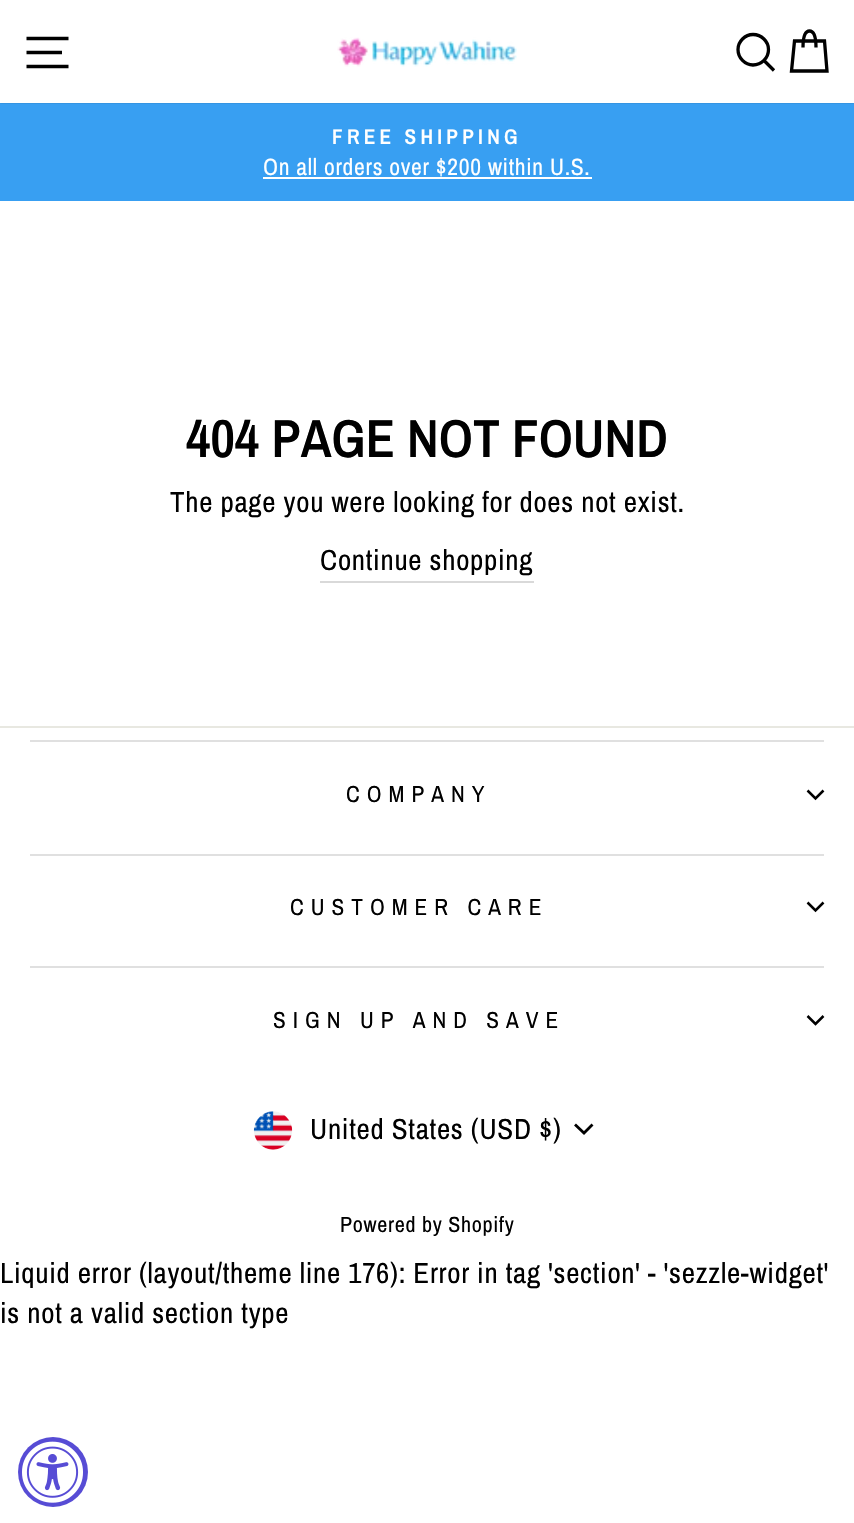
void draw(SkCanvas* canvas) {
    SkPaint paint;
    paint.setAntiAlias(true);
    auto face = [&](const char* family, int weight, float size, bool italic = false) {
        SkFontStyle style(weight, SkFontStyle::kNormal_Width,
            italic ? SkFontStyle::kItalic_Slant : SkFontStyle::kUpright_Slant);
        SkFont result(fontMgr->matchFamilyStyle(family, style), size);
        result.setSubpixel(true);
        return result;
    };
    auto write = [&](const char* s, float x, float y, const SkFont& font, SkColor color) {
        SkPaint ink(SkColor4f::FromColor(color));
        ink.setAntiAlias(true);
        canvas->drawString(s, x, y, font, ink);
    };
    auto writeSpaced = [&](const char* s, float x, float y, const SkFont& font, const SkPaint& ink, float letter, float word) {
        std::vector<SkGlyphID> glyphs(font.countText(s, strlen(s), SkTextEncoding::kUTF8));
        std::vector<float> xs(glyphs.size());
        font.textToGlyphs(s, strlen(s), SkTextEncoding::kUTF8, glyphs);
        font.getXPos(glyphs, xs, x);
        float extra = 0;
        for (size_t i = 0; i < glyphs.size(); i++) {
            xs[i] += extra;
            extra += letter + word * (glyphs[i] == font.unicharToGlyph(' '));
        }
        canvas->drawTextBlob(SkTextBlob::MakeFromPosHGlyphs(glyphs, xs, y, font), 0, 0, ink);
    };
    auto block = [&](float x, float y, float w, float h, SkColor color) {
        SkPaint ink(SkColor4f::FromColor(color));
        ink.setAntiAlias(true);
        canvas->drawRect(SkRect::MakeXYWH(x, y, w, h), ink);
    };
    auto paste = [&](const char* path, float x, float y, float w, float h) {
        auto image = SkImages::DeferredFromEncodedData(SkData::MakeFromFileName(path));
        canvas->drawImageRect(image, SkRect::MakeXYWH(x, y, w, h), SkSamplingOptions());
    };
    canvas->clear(SK_ColorWHITE);
    block(0, 103, 854, 98, SkColorSetRGB(56, 159, 242));
    canvas->save();
    canvas->clipRect(SkRect::MakeXYWH(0, 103, 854, 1));
    paint.setColor(SkColorSetARGB(51, 0, 0, 0));
    paint.setMaskFilter(SkMaskFilter::MakeBlur(kNormal_SkBlurStyle, 1));
    canvas->drawRect(SkRect::MakeXYWH(0, 0, 854, 103), paint);
    paint.setMaskFilter(nullptr);
    canvas->restore();
    paint.setStyle(SkPaint::kStroke_Style);
    paint.setStrokeWidth(3.3f);
    paint.setColor(SK_ColorBLACK);
    canvas->drawPath(SkPathBuilder().moveTo(26.5f, 38.5f).lineTo(68.5f, 38.5f).moveTo(26.5f, 52.5f).lineTo(62, 52.5f).moveTo(26.5f, 66.5f).lineTo(68.5f, 66.5f).detach(), paint);
    paste("pic1.png", 337, 37, 180, 30);
    canvas->drawPath(SkPathBuilder().moveTo(768.5f, 49.5f).cubicTo(768.5f, 58, 761.5f, 65, 753, 65).cubicTo(745, 65, 738, 58, 738, 49.5f).cubicTo(738, 41.5f, 745, 34.5f, 753, 34.5f).cubicTo(761.5f, 34.5f, 768.5f, 41.5f, 768.5f, 49.5f).close().moveTo(774, 70.5f).lineTo(764, 60.5f).detach(), paint);
    canvas->drawPath(SkPathBuilder().moveTo(803, 47.5f).cubicTo(803, 34.5f, 805.5f, 31, 809.5f, 31).cubicTo(813, 31, 816, 34.5f, 816, 47.5f).moveTo(794.5f, 41).lineTo(824.5f, 41).lineTo(827, 71).lineTo(791.5f, 71).close().detach(), paint);
    auto kFont1 = face("Archivo Narrow", 600, 21.25f);
    paint.setStyle(SkPaint::kFill_Style);
    paint.setColor(SK_ColorWHITE);
    writeSpaced("FREE SHIPPING", 332, 144, kFont1, paint, 4.25f, 0);
    auto kFont2 = face("Archivo Narrow", 400, 23.6f);
    writeSpaced("On all orders over $200 within U.S.", 263, 175, kFont2, paint, 0.72f, 0);
    block(263, 177, 329, 2, SK_ColorWHITE);
    auto kFont3 = face("Archivo Narrow", 600, 53.5f);
    write("404 PAGE NOT FOUND", 186, 457, kFont3, SK_ColorBLACK);
    auto kFont4 = face("Archivo Narrow", 400, 29);
    paint.setColor(SK_ColorBLACK);
    writeSpaced("The page you were looking for does not exist.", 170, 512, kFont4, paint, 0.72f, 0);
    block(320, 581, 214, 2, SkColorSetRGB(217, 217, 217));
    writeSpaced("Continue shopping", 320, 570, kFont4, paint, 0.72f, 0);
    block(0, 726, 854, 2, SkColorSetRGB(232, 232, 225));
    block(30, 740, 794, 2, SkColorSetRGB(224, 224, 224));
    auto kFont5 = face("Archivo Narrow", 400, 23.25f);
    writeSpaced("COMPANY", 346, 802, kFont5, paint, 7, 0);
    paint.setStyle(SkPaint::kStroke_Style);
    paint.setStrokeWidth(2.5f);
    canvas->drawPath(SkPathBuilder().moveTo(807.5f, 790.5f).lineTo(815.5f, 798.5f).lineTo(823.5f, 790.5f).detach(), paint);
    block(30, 854, 794, 2, SkColorSetRGB(224, 224, 224));
    paint.setStyle(SkPaint::kFill_Style);
    writeSpaced("CUSTOMER CARE", 290, 915, kFont5, paint, 7, 0);
    paint.setStyle(SkPaint::kStroke_Style);
    canvas->drawPath(SkPathBuilder().moveTo(807.5f, 902.5f).lineTo(815.5f, 910.5f).lineTo(823.5f, 902.5f).detach(), paint);
    block(30, 966, 794, 2, SkColorSetRGB(224, 224, 224));
    paint.setStyle(SkPaint::kFill_Style);
    writeSpaced("SIGN UP AND SAVE", 273, 1028, kFont5, paint, 7, 0);
    paint.setStyle(SkPaint::kStroke_Style);
    canvas->drawPath(SkPathBuilder().moveTo(807.5f, 1016).lineTo(815.5f, 1024).lineTo(823.5f, 1016).detach(), paint);
    paste("pic2.png", 253, 1111, 40, 39);
    paint.setStyle(SkPaint::kFill_Style);
    writeSpaced("United States (USD $)", 310, 1139, kFont4, paint, 0.72f, 0);
    paint.setStyle(SkPaint::kStroke_Style);
    paint.setStrokeWidth(2.8f);
    canvas->drawPath(SkPathBuilder().moveTo(575, 1124.5f).lineTo(584, 1133).lineTo(592.5f, 1124.5f).detach(), paint);
    auto kFont6 = face("Archivo Narrow", 400, 22);
    paint.setStyle(SkPaint::kFill_Style);
    writeSpaced("Powered by Shopify", 340, 1232, kFont6, paint, 0.72f, 0);
    writeSpaced("Liquid error (layout/theme line 176): Error in tag 'section' - 'sezzle-widget'", 0, 1283, kFont4, paint, 0.72f, 0);
    writeSpaced("is not a valid section type", 0, 1323, kFont4, paint, 0.72f, 0);
    paint.setColor(SkColorSetRGB(87, 76, 213));
    canvas->drawCircle(53, 1472, 35, paint);
    paste("pic3.png", 22, 1441, 61, 62);
}
